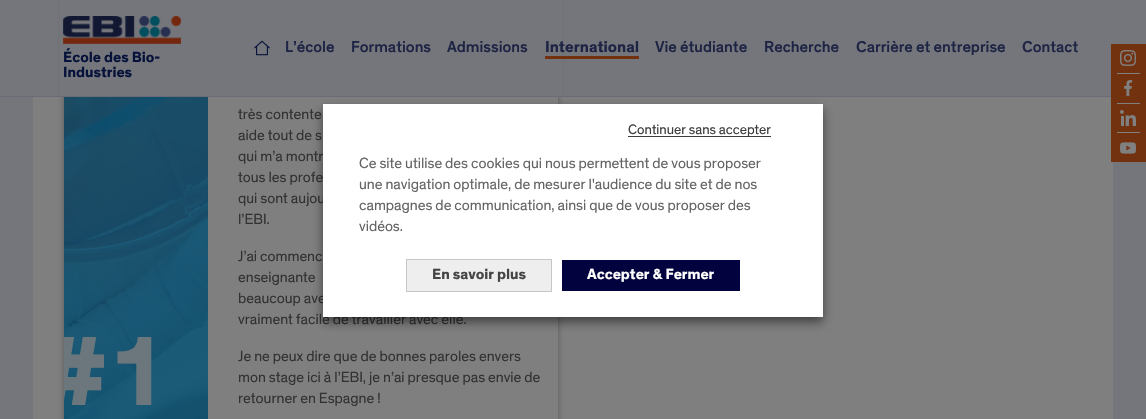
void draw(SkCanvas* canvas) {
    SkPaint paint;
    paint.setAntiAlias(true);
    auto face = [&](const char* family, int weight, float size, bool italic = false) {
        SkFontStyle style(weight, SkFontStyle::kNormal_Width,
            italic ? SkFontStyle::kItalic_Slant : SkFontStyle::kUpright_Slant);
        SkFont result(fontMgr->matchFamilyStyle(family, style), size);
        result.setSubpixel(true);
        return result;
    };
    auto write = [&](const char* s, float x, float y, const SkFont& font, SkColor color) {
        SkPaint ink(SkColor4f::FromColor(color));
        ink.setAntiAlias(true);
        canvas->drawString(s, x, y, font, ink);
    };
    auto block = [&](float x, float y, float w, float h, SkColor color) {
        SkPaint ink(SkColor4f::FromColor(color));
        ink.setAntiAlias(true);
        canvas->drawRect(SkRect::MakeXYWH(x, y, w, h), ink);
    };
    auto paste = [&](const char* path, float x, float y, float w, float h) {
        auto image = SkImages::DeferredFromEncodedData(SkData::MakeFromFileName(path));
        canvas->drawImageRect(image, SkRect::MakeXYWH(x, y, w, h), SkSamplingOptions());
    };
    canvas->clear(SkColorSetRGB(116, 118, 123));
    block(33, 97, 1080, 322, SkColorSetRGB(127, 127, 127));
    canvas->save();
    canvas->clipPath(SkPathBuilder(SkPathFillType::kEvenOdd).moveTo(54, 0).lineTo(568, 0).lineTo(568, 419).lineTo(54, 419).close().moveTo(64, -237).lineTo(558, -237).lineTo(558, 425).lineTo(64, 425).close().detach(), true);
    paint.setColor(SkColorSetARGB(77, 0, 0, 0));
    paint.setMaskFilter(SkMaskFilter::MakeBlur(kNormal_SkBlurStyle, 3));
    canvas->drawRect(SkRect::MakeXYWH(64, -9, 494, 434), paint);
    paint.setMaskFilter(nullptr);
    canvas->restore();
    block(0, 96, 1111, 1, SkColorSetRGB(105, 108, 119));
    block(60, 0, 502, 96, SkColorSetRGB(116, 118, 123));
    paste("pic1.png", 62, 16, 119, 28);
    auto kFont1 = face("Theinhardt", 700, 15);
    write("École des Bio-", 63, 62, kFont1, SkColorSetRGB(7, 18, 58));
    write("Industries", 63, 77, kFont1, SkColorSetRGB(7, 18, 58));
    paste("pic2.png", 254, 40, 16, 16);
    auto kFont2 = face("Theinhardt", 500, 16);
    write("L’école", 285, 52, kFont2, SkColorSetRGB(29, 36, 68));
    write("Formations", 351, 52, kFont2, SkColorSetRGB(29, 36, 68));
    write("Admissions", 447, 52, kFont2, SkColorSetRGB(29, 36, 68));
    auto kFont3 = face("Theinhardt", 700, 16);
    write("International", 545, 52, kFont3, SkColorSetRGB(29, 36, 68));
    block(545, 56, 94, 3, SkColorSetRGB(114, 50, 16));
    write("Vie étudiante", 655, 52, kFont2, SkColorSetRGB(29, 36, 68));
    write("Recherche", 764, 52, kFont2, SkColorSetRGB(29, 36, 68));
    write("Carrière et entreprise", 856, 52, kFont2, SkColorSetRGB(29, 36, 68));
    write("Contact", 1022, 52, kFont2, SkColorSetRGB(29, 36, 68));
    block(1111, 44, 35, 118, SkColorSetRGB(114, 50, 16));
    block(1117, 73, 23, 1, SkColorSetRGB(127, 127, 127));
    paste("pic3.png", 1120, 50, 16, 16);
    block(1117, 103, 23, 1, SkColorSetRGB(127, 127, 127));
    paste("pic4.png", 1124, 80, 9, 16);
    block(1117, 132, 23, 1, SkColorSetRGB(127, 127, 127));
    paste("pic5.png", 1120, 110, 16, 16);
    paste("pic6.png", 1120, 142, 16, 12);
    paste("pic7.png", 64, 97, 144, 322);
    canvas->save();
    canvas->clipRect(SkRect::MakeXYWH(64, 0, 144, 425));
    auto kFont4 = face("Theinhardt", 700, 100);
    write("#1", 38, 405, kFont4, SkColorSetRGB(107, 119, 125));
    canvas->restore();
    auto kFont5 = face("Theinhardt", 400, 15);
    write("très contente", 238, 119, kFont5, SkColorSetRGB(50, 50, 50));
    write("aide tout de s", 238, 140, kFont5, SkColorSetRGB(50, 50, 50));
    write("qui m’a montr", 238, 161, kFont5, SkColorSetRGB(50, 50, 50));
    write("tous les profe", 238, 182, kFont5, SkColorSetRGB(50, 50, 50));
    write("qui sont aujou", 238, 203, kFont5, SkColorSetRGB(50, 50, 50));
    write("l’EBI.", 238, 224, kFont5, SkColorSetRGB(50, 50, 50));
    write("J’ai commenc", 238, 261, kFont5, SkColorSetRGB(50, 50, 50));
    write("enseignante", 238, 282, kFont5, SkColorSetRGB(50, 50, 50));
    write("beaucoup ave", 238, 303, kFont5, SkColorSetRGB(50, 50, 50));
    write("vraiment facile de travailler avec elle.", 238, 324, kFont5, SkColorSetRGB(50, 50, 50));
    write("Je ne peux dire que de bonnes paroles envers", 238, 361, kFont5, SkColorSetRGB(50, 50, 50));
    write("mon stage ici à l’EBI, je n’ai presque pas envie de", 238, 382, kFont5, SkColorSetRGB(50, 50, 50));
    write("retourner en Espagne !", 238, 403, kFont5, SkColorSetRGB(50, 50, 50));
    paint.setColor(SkColorSetARGB(128, 0, 0, 0));
    paint.setMaskFilter(SkMaskFilter::MakeBlur(kNormal_SkBlurStyle, 5));
    canvas->drawRect(SkRect::MakeXYWH(323, 109, 500, 213), paint);
    paint.setMaskFilter(nullptr);
    block(323, 104, 500, 213, SK_ColorWHITE);
    block(628, 136, 143, 1, SkColorSetRGB(60, 60, 60));
    auto kFont6 = face("Theinhardt", 400, 14);
    write("Continuer sans accepter", 628, 134, kFont6, SkColorSetRGB(60, 60, 60));
    write("Ce site utilise des cookies qui nous permettent de vous proposer", 359, 168, kFont5, SkColorSetRGB(100, 100, 100));
    write("une navigation optimale, de mesurer l'audience du site et de nos", 359, 189, kFont5, SkColorSetRGB(100, 100, 100));
    write("campagnes de communication, ainsi que de vous proposer des", 359, 210, kFont5, SkColorSetRGB(100, 100, 100));
    write("vidéos.", 359, 231, kFont5, SkColorSetRGB(100, 100, 100));
    paint.setColor(SkColorSetRGB(238, 238, 238));
    canvas->drawRect(SkRect::MakeXYWH(406.5f, 259.5f, 145, 32), paint);
    paint.setStyle(SkPaint::kStroke_Style);
    paint.setStrokeWidth(1);
    paint.setColor(SkColorSetRGB(199, 197, 197));
    canvas->drawRect(SkRect::MakeXYWH(406.5f, 259.5f, 145, 32), paint);
    write("En savoir plus", 432, 279, kFont1, SkColorSetRGB(68, 68, 68));
    block(562, 260, 178, 31, SkColorSetRGB(2, 2, 62));
    write("Accepter & Fermer", 587, 279, kFont1, SK_ColorWHITE);
}
